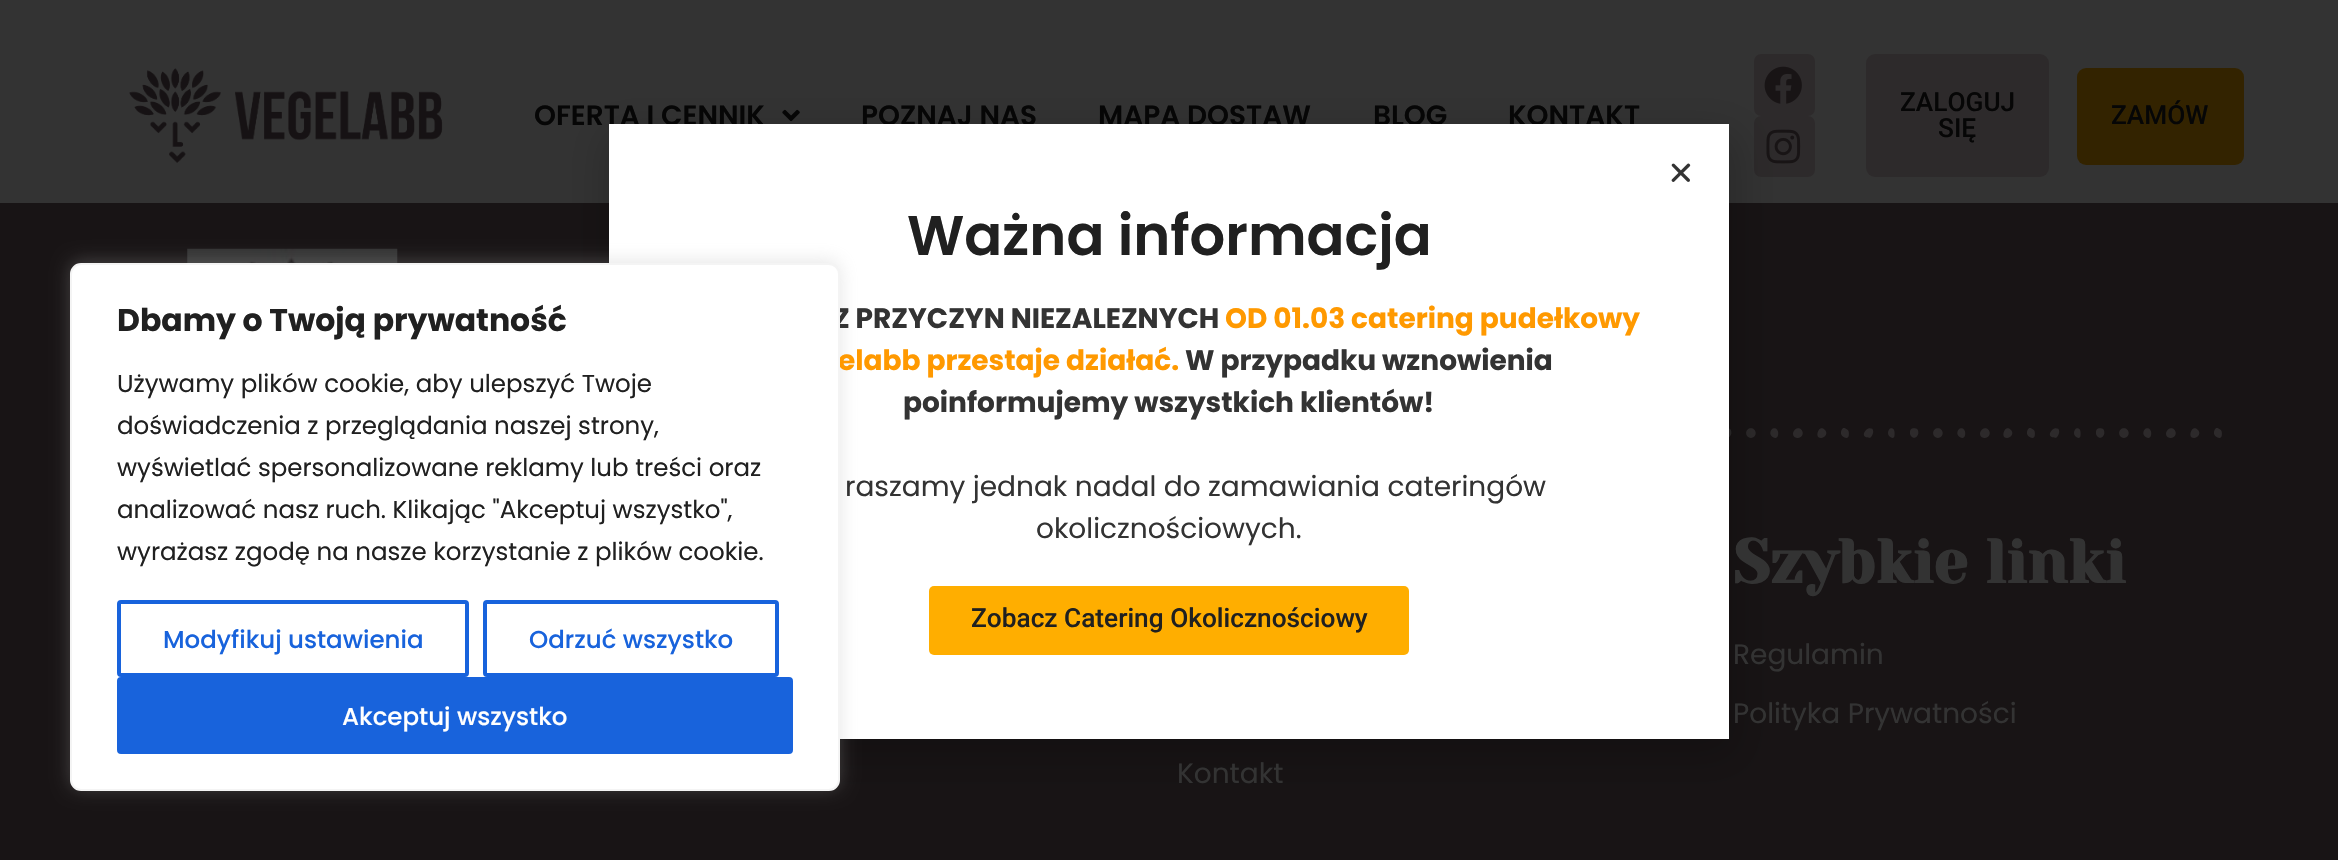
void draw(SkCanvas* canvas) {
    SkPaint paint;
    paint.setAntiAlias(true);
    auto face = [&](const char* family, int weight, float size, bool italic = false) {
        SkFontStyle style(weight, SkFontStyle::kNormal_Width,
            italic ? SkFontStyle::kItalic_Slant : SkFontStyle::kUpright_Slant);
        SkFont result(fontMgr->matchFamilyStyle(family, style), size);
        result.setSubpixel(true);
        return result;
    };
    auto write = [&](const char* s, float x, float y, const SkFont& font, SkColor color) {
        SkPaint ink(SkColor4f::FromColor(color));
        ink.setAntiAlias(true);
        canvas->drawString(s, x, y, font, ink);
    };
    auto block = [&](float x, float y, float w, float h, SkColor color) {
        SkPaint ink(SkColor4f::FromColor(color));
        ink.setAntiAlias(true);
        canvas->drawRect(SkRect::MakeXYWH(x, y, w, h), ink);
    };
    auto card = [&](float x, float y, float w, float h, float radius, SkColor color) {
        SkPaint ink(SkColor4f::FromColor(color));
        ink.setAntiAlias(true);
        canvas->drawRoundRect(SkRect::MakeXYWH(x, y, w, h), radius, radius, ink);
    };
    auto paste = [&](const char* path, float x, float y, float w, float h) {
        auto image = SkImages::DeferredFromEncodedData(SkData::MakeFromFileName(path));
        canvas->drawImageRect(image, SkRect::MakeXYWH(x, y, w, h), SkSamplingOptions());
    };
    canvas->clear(SkColorSetRGB(24, 20, 21));
    block(0, 0, 2338, 203, SkColorSetRGB(51, 51, 51));
    paste("pic1.png", 129, 68, 314, 95);
    auto kFont1 = face("Poppins", 600, 28);
    write("OFERTA I CENNIK", 534, 125, kFont1, SkColorSetRGB(6, 6, 6));
    paste("pic2.png", 782, 109, 18, 13);
    write("POZNAJ NAS", 861, 125, kFont1, SkColorSetRGB(6, 6, 6));
    write("MAPA DOSTAW", 1098, 125, kFont1, SkColorSetRGB(6, 6, 6));
    write("BLOG", 1373, 125, kFont1, SkColorSetRGB(6, 6, 6));
    write("KONTAKT", 1508, 125, kFont1, SkColorSetRGB(6, 6, 6));
    card(1754, 54, 61, 62, 7, SkColorSetRGB(45, 42, 43));
    paste("pic3.png", 1764, 66, 38, 38);
    card(1754, 116, 61, 61, 7, SkColorSetRGB(45, 42, 43));
    paste("pic4.png", 1766, 129, 35, 35);
    card(1866, 54, 183, 123, 9, SkColorSetRGB(45, 42, 43));
    auto kFont2 = face("Roboto", 500, 26.25f);
    write("ZALOGUJ", 1900, 111, kFont2, SkColorSetRGB(6, 6, 6));
    write("SIĘ", 1938, 137, kFont2, SkColorSetRGB(6, 6, 6));
    card(2077, 68, 167, 97, 9, SkColorSetRGB(51, 35, 0));
    write("ZAMÓW", 2111, 124, kFont2, SkColorSetRGB(6, 6, 6));
    paste("pic7.png", 1729, 428, 493, 10);
    paint.setColor(SkColorSetARGB(51, 0, 0, 0));
    paint.setMaskFilter(SkMaskFilter::MakeBlur(kNormal_SkBlurStyle, 20));
    canvas->drawRect(SkRect::MakeXYWH(607, 133, 1131, 625), paint);
    paint.setMaskFilter(nullptr);
    block(609, 124, 1120, 615, SK_ColorWHITE);
    paste("pic6.png", 187, 248, 211, 15);
    paint.setColor(SkColorSetARGB(77, 172, 171, 171));
    paint.setMaskFilter(SkMaskFilter::MakeBlur(kNormal_SkBlurStyle, 9));
    canvas->drawRoundRect(SkRect::MakeXYWH(70, 261, 770, 528), 11, 11, paint);
    paint.setMaskFilter(nullptr);
    auto kFont3 = face("Poppins", 700, 28);
    write("Z PRZYCZYN NIEZALEZNYCH", 833, 328, kFont3, SkColorSetRGB(51, 51, 51));
    write("elabb przestaje działać.", 838, 370, kFont3, SkColorSetRGB(255, 153, 0));
    paint.setColor(SK_ColorWHITE);
    canvas->drawRoundRect(SkRect::MakeXYWH(71, 264, 768, 526), 10, 10, paint);
    paint.setStyle(SkPaint::kStroke_Style);
    paint.setStrokeWidth(2);
    paint.setColor(SkColorSetRGB(244, 244, 244));
    canvas->drawRoundRect(SkRect::MakeXYWH(71, 264, 768, 526), 10, 10, paint);
    auto kFont4 = face("Poppins", 700, 31.5f);
    write("Dbamy o Twoją prywatność", 117, 331, kFont4, SkColorSetRGB(32, 32, 32));
    auto kFont5 = face("Poppins", 400, 24.5f);
    write("Używamy plików cookie, aby ulepszyć Twoje", 117, 392, kFont5, SkColorSetRGB(32, 32, 32));
    write("doświadczenia z przeglądania naszej strony,", 117, 434, kFont5, SkColorSetRGB(32, 32, 32));
    write("wyświetlać spersonalizowane reklamy lub treści oraz", 117, 476, kFont5, SkColorSetRGB(32, 32, 32));
    write("analizować nasz ruch. Klikając \"Akceptuj wszystko\",", 117, 518, kFont5, SkColorSetRGB(32, 32, 32));
    write("wyrażasz zgodę na nasze korzystanie z plików cookie.", 117, 560, kFont5, SkColorSetRGB(32, 32, 32));
    paint.setStrokeWidth(4);
    paint.setColor(SkColorSetRGB(24, 99, 220));
    canvas->drawRoundRect(SkRect::MakeXYWH(119, 602, 348, 73), 2, 2, paint);
    auto kFont6 = face("Poppins", 500, 24.5f);
    write("Modyfikuj ustawienia", 163, 648, kFont6, SkColorSetRGB(24, 99, 220));
    canvas->drawRoundRect(SkRect::MakeXYWH(485, 602, 292, 73), 2, 2, paint);
    write("Odrzuć wszystko", 529, 648, kFont6, SkColorSetRGB(24, 99, 220));
    paint.setStyle(SkPaint::kFill_Style);
    canvas->drawRoundRect(SkRect::MakeXYWH(119, 679, 672, 73), 2, 2, paint);
    paint.setStyle(SkPaint::kStroke_Style);
    canvas->drawRoundRect(SkRect::MakeXYWH(119, 679, 672, 73), 2, 2, paint);
    write("Akceptuj wszystko", 342, 725, kFont6, SK_ColorWHITE);
    paste("pic5.png", 1671, 163, 20, 19);
    auto kFont7 = face("Poppins", 600, 56);
    write("Ważna informacja", 907, 255, kFont7, SkColorSetRGB(32, 32, 32));
    write("OD 01.03 catering pudełkowy", 1225, 328, kFont3, SkColorSetRGB(255, 153, 0));
    write("W przypadku wznowienia", 1185, 370, kFont3, SkColorSetRGB(51, 51, 51));
    write("poinformujemy wszystkich klientów!", 903, 412, kFont3, SkColorSetRGB(51, 51, 51));
    auto kFont8 = face("Poppins", 400, 28);
    write("raszamy jednak nadal do zamawiania cateringów", 845, 496, kFont8, SkColorSetRGB(51, 51, 51));
    write("okolicznościowych.", 1036, 538, kFont8, SkColorSetRGB(51, 51, 51));
    card(929, 586, 480, 69, 5, SkColorSetRGB(255, 174, 0));
    write("Zobacz Catering Okolicznościowy", 971, 627, kFont2, SkColorSetRGB(32, 32, 32));
    auto kFont9 = face("Yeseva One", 700, 61.5f);
    write("Szybkie linki", 1733, 583, kFont9, SkColorSetRGB(51, 51, 51));
    write("Regulamin", 1733, 664, kFont8, SkColorSetRGB(51, 51, 51));
    write("Polityka Prywatności", 1733, 723, kFont8, SkColorSetRGB(51, 51, 51));
    write("Kontakt", 1177, 783, kFont8, SkColorSetRGB(51, 51, 51));
}
